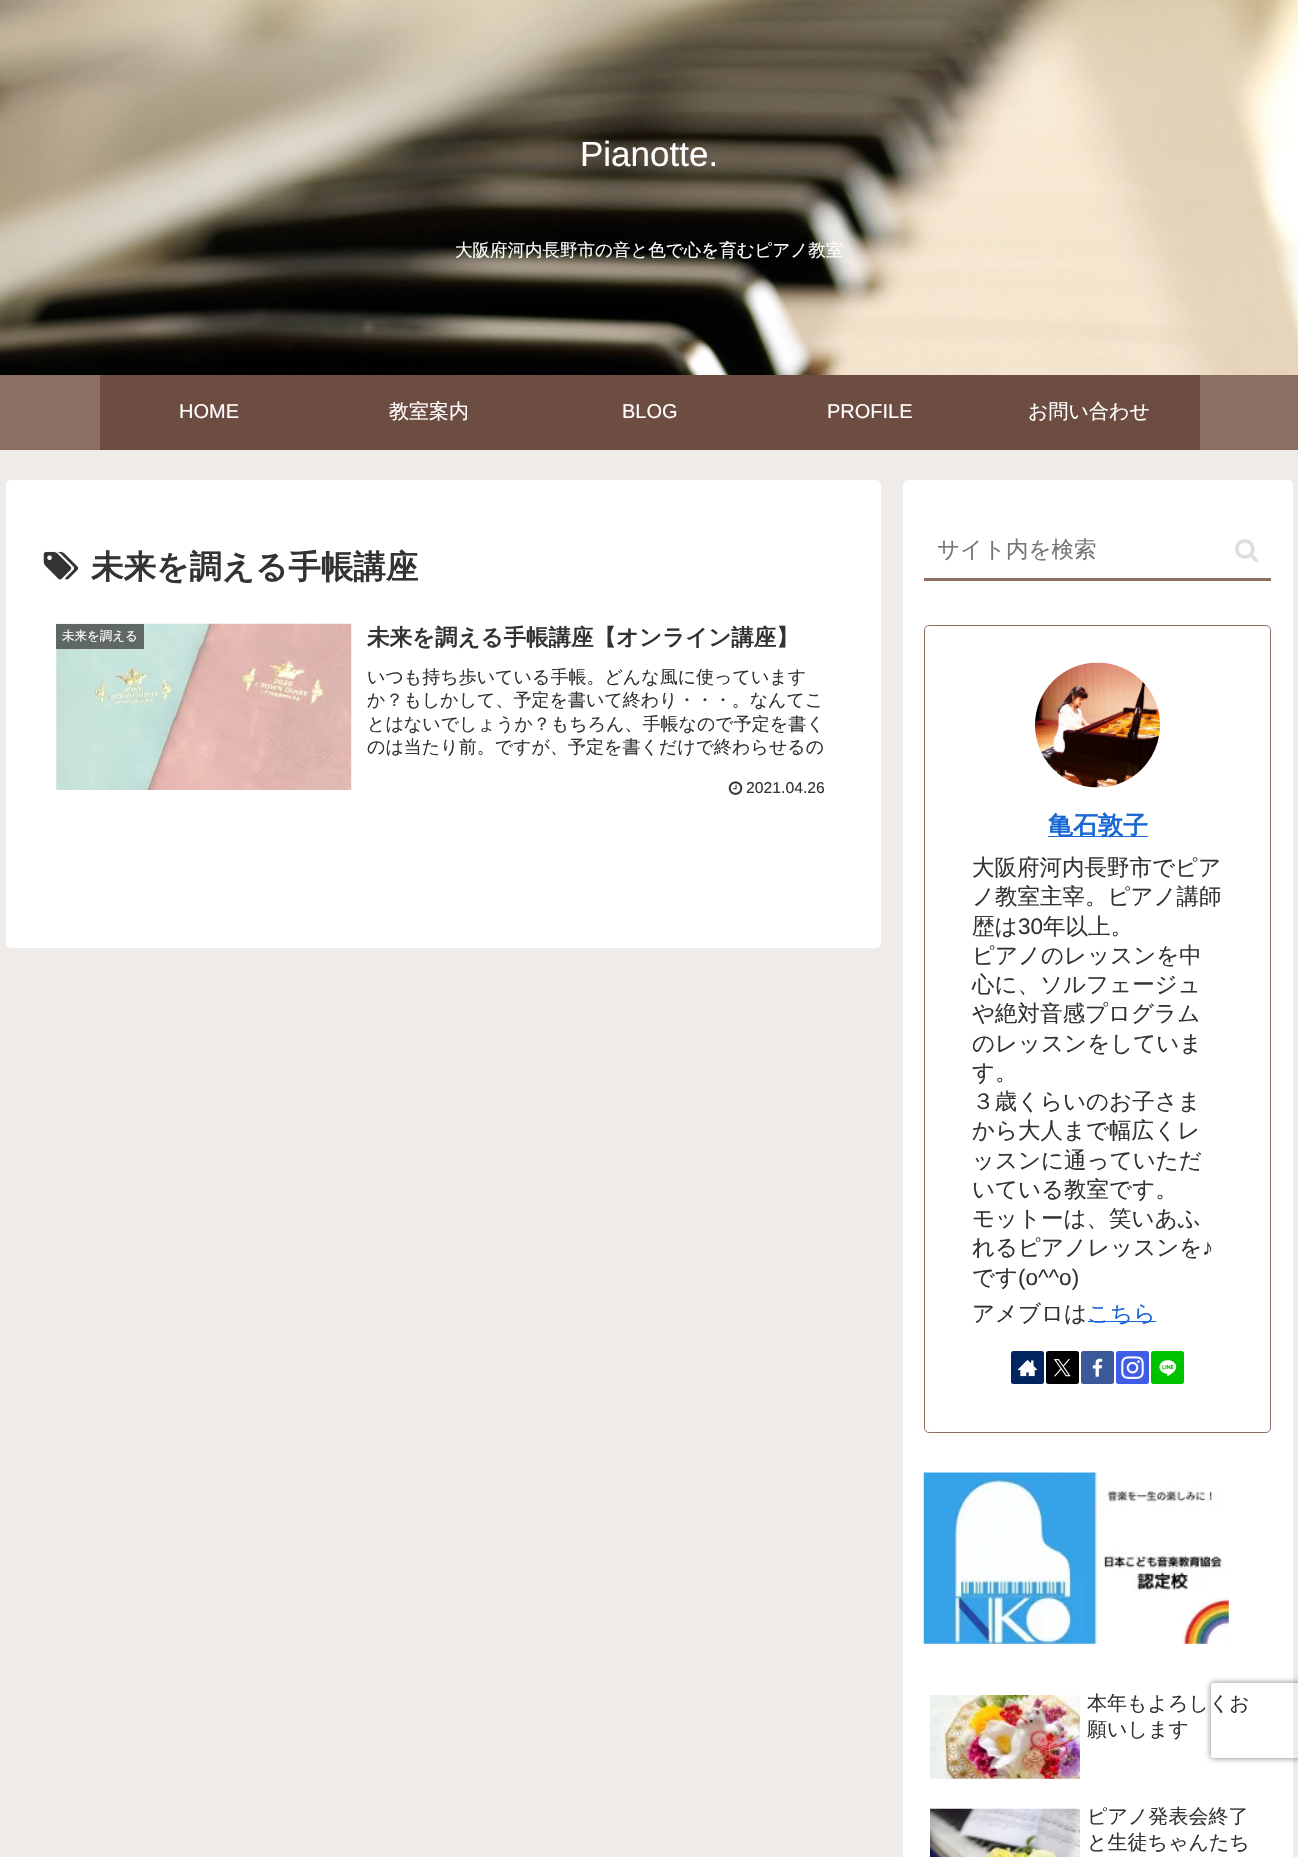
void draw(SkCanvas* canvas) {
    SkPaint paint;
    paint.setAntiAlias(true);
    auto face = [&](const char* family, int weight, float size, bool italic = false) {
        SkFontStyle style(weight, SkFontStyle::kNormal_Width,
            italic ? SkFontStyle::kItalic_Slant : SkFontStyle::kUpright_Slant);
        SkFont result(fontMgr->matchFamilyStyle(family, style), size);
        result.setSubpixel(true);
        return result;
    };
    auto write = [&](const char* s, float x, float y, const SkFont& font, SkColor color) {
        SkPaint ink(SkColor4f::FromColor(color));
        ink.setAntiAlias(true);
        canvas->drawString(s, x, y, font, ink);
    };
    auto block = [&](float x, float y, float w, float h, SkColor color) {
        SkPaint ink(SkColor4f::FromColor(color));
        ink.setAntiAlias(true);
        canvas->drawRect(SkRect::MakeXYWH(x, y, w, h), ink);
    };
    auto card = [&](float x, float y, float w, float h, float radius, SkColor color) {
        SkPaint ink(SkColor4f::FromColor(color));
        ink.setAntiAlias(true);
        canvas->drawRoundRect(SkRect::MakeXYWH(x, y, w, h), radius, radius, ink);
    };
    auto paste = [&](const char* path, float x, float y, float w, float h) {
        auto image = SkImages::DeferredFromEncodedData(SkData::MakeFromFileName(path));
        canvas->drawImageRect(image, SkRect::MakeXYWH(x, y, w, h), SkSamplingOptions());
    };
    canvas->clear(SkColorSetRGB(239, 235, 233));
    block(0, 375, 1298, 75, SkColorSetRGB(141, 110, 99));
    paste("pic1.png", 0, 0, 1298, 375);
    auto kFont1 = face("Liberation Sans", 400, 35);
    write("Pianotte.", 580, 166, kFont1, SK_ColorWHITE);
    auto kFont2 = face("WenQuanYi Zen Hei", 500, 17.5f);
    write("大阪府河内長野市の音と色で心を育むピアノ教室", 455, 256, kFont2, SK_ColorWHITE);
    block(100, 375, 1100, 75, SkColorSetRGB(109, 76, 65));
    auto kFont3 = face("Liberation Sans", 400, 20);
    write("HOME", 179, 418, kFont3, SK_ColorWHITE);
    auto kFont4 = face("WenQuanYi Zen Hei", 500, 20);
    write("教室案内", 389, 418, kFont4, SK_ColorWHITE);
    write("BLOG", 622, 418, kFont3, SK_ColorWHITE);
    write("PROFILE", 827, 418, kFont3, SK_ColorWHITE);
    write("お問い合わせ", 1028, 418, kFont4, SK_ColorWHITE);
    card(6, 480, 875, 468, 5, SK_ColorWHITE);
    paste("pic2.png", 43, 551, 36, 29);
    auto kFont5 = face("WenQuanYi Zen Hei", 700, 32.5f);
    write("未来を調える手帳講座", 91, 578, kFont5, SkColorSetRGB(51, 51, 51));
    paste("pic3.png", 56, 623, 296, 167);
    block(56, 624, 88, 25, SkColorSetARGB(179, 51, 51, 51));
    auto kFont6 = face("WenQuanYi Zen Hei", 500, 12.5f);
    write("未来を調える", 62, 640, kFont6, SK_ColorWHITE);
    auto kFont7 = face("WenQuanYi Zen Hei", 700, 22.5f);
    write("未来を調える手帳講座【オンライン講座】", 367, 645, kFont7, SkColorSetRGB(51, 51, 51));
    auto kFont8 = face("WenQuanYi Zen Hei", 500, 18);
    write("いつも持ち歩いている手帳。どんな風に使っています", 367, 683, kFont8, SkColorSetRGB(51, 51, 51));
    write("か？もしかして、予定を書いて終わり・・・。なんてこ", 367, 706, kFont8, SkColorSetRGB(51, 51, 51));
    write("とはないでしょうか？もちろん、手帳なので予定を書く", 367, 730, kFont8, SkColorSetRGB(51, 51, 51));
    write("のは当たり前。ですが、予定を書くだけで終わらせるの", 367, 753, kFont8, SkColorSetRGB(51, 51, 51));
    paste("pic4.png", 728, 781, 15, 14);
    auto kFont9 = face("Liberation Sans", 400, 15.75f);
    write("2021.04.26", 746, 793, kFont9, SkColorSetRGB(51, 51, 51));
    card(903, 480, 390, 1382, 5, SK_ColorWHITE);
    block(924, 578, 347, 3, SkColorSetRGB(141, 110, 99));
    auto kFont10 = face("WenQuanYi Zen Hei", 500, 22.5f);
    write("サイト内を検索", 937, 557, kFont10, SkColorSetRGB(117, 117, 117));
    paste("pic5.png", 1235, 539, 24, 24);
    paint.setStyle(SkPaint::kStroke_Style);
    paint.setStrokeWidth(1);
    paint.setColor(SkColorSetRGB(141, 110, 99));
    canvas->drawRoundRect(SkRect::MakeXYWH(924.5f, 625.5f, 346, 807), 4.5f, 4.5f, paint);
    paste("pic6.png", 1035, 662, 125, 126);
    block(1048, 836, 100, 1, SkColorSetRGB(25, 103, 210));
    auto kFont11 = face("WenQuanYi Zen Hei", 700, 25);
    write("亀石敦子", 1048, 834, kFont11, SkColorSetRGB(25, 103, 210));
    write("大阪府河内長野市でピア", 972, 875, kFont10, SkColorSetRGB(51, 51, 51));
    write("ノ教室主宰。ピアノ講師", 972, 904, kFont10, SkColorSetRGB(51, 51, 51));
    write("歴は", 972, 934, kFont10, SkColorSetRGB(51, 51, 51));
    auto kFont12 = face("Liberation Sans", 400, 22.5f);
    write("30", 1018, 934, kFont12, SkColorSetRGB(51, 51, 51));
    write("年以上。", 1043, 934, kFont10, SkColorSetRGB(51, 51, 51));
    write("ピアノのレッスンを中", 972, 963, kFont10, SkColorSetRGB(51, 51, 51));
    write("心に、ソルフェージュ", 972, 992, kFont10, SkColorSetRGB(51, 51, 51));
    write("や絶対音感プログラム", 972, 1021, kFont10, SkColorSetRGB(51, 51, 51));
    write("のレッスンをしていま", 972, 1051, kFont10, SkColorSetRGB(51, 51, 51));
    write("す。", 972, 1080, kFont10, SkColorSetRGB(51, 51, 51));
    write("３歳くらいのお子さま", 972, 1109, kFont10, SkColorSetRGB(51, 51, 51));
    write("から大人まで幅広くレ", 972, 1138, kFont10, SkColorSetRGB(51, 51, 51));
    write("ッスンに通っていただ", 972, 1168, kFont10, SkColorSetRGB(51, 51, 51));
    write("いている教室です。", 972, 1197, kFont10, SkColorSetRGB(51, 51, 51));
    write("モットーは、笑いあふ", 972, 1226, kFont10, SkColorSetRGB(51, 51, 51));
    write("れるピアノレッスンを", 972, 1255, kFont10, SkColorSetRGB(51, 51, 51));
    write("♪", 1202, 1255, kFont12, SkColorSetRGB(51, 51, 51));
    write("です", 972, 1285, kFont10, SkColorSetRGB(51, 51, 51));
    write("(o^^o)", 1018, 1285, kFont12, SkColorSetRGB(51, 51, 51));
    write("アメブロは", 972, 1321, kFont10, SkColorSetRGB(51, 51, 51));
    block(1088, 1321, 68, 1, SkColorSetRGB(25, 103, 210));
    write("こちら", 1087, 1321, kFont10, SkColorSetRGB(25, 103, 210));
    card(1011, 1351, 33, 33, 2.5f, SkColorSetRGB(0, 37, 97));
    paste("pic7.png", 1017, 1360, 21, 17);
    card(1046, 1351, 33, 33, 2.5f, SK_ColorBLACK);
    paste("pic8.png", 1054, 1359, 17, 18);
    card(1081, 1351, 33, 33, 2.5f, SkColorSetRGB(59, 89, 152));
    paste("pic9.png", 1092, 1358, 11, 19);
    card(1116, 1351, 33, 33, 2.5f, SkColorSetRGB(64, 93, 230));
    paste("pic10.png", 1121, 1356, 23, 23);
    card(1151, 1351, 33, 33, 2.5f, SkColorSetRGB(0, 195, 0));
    paste("pic11.png", 1159, 1360, 18, 17);
    paste("pic12.png", 923, 1472, 306, 172);
    paste("pic13.png", 930, 1695, 150, 84);
    write("本年もよろしくお", 1087, 1710, kFont4, SkColorSetRGB(51, 51, 51));
    write("願いします", 1087, 1736, kFont4, SkColorSetRGB(51, 51, 51));
    paste("pic14.png", 930, 1808, 150, 49);
    write("ピアノ発表会終了", 1087, 1823, kFont4, SkColorSetRGB(51, 51, 51));
    write("と生徒ちゃんたち", 1087, 1849, kFont4, SkColorSetRGB(51, 51, 51));
    canvas->save();
    canvas->clipPath(SkPathBuilder(SkPathFillType::kEvenOdd).moveTo(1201, 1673).lineTo(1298, 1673).lineTo(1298, 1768).lineTo(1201, 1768).close().moveTo(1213.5f, 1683).lineTo(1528.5f, 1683).cubicTo(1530, 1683, 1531, 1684, 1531, 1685.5f).lineTo(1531, 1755.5f).cubicTo(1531, 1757, 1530, 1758, 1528.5f, 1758).lineTo(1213.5f, 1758).cubicTo(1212, 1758, 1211, 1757, 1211, 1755.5f).lineTo(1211, 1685.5f).cubicTo(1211, 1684, 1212, 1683, 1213.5f, 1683).close().detach(), true);
    paint.setStyle(SkPaint::kFill_Style);
    paint.setColor(SkColorSetRGB(128, 128, 128));
    paint.setMaskFilter(SkMaskFilter::MakeBlur(kNormal_SkBlurStyle, 3));
    canvas->drawRoundRect(SkRect::MakeXYWH(1211, 1683, 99, 75), 2.5f, 2.5f, paint);
    paint.setMaskFilter(nullptr);
    canvas->restore();
}
